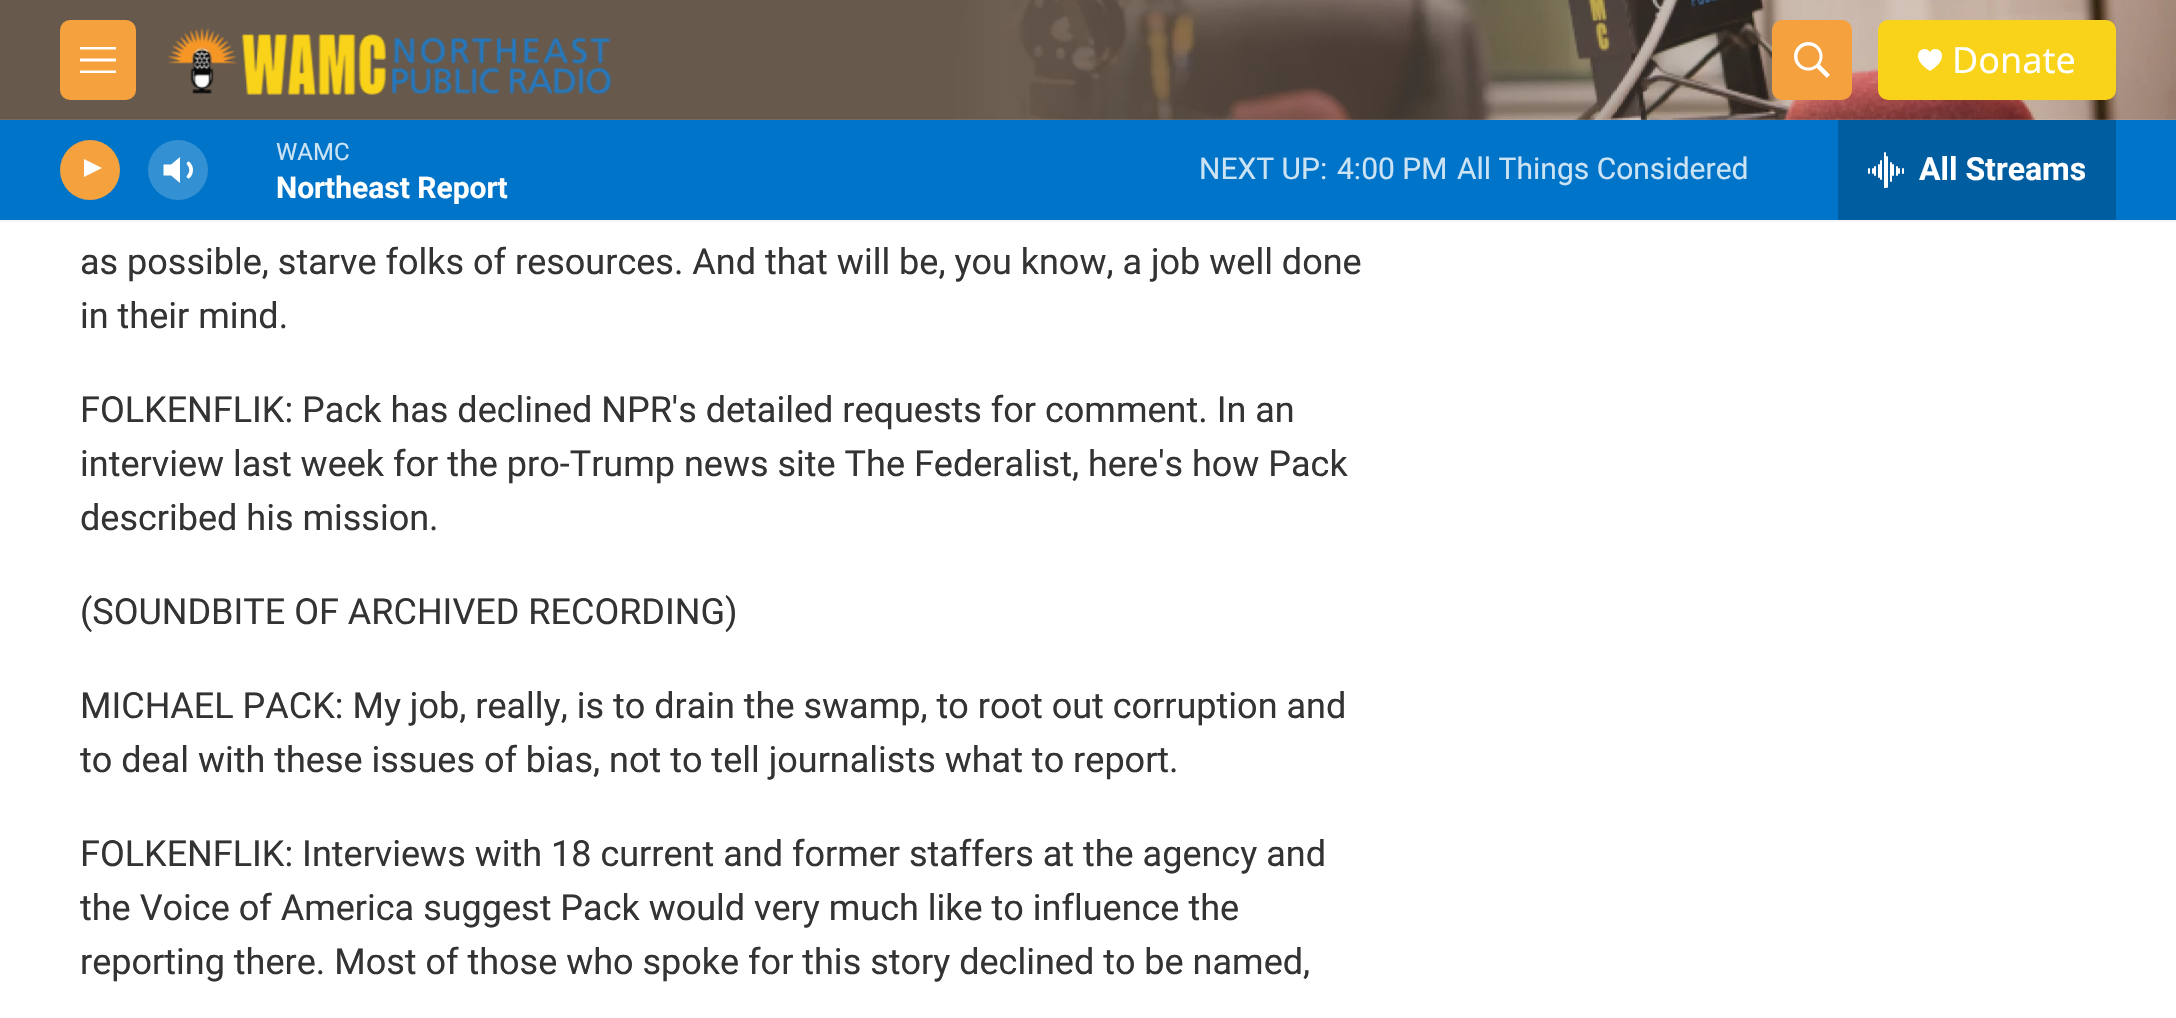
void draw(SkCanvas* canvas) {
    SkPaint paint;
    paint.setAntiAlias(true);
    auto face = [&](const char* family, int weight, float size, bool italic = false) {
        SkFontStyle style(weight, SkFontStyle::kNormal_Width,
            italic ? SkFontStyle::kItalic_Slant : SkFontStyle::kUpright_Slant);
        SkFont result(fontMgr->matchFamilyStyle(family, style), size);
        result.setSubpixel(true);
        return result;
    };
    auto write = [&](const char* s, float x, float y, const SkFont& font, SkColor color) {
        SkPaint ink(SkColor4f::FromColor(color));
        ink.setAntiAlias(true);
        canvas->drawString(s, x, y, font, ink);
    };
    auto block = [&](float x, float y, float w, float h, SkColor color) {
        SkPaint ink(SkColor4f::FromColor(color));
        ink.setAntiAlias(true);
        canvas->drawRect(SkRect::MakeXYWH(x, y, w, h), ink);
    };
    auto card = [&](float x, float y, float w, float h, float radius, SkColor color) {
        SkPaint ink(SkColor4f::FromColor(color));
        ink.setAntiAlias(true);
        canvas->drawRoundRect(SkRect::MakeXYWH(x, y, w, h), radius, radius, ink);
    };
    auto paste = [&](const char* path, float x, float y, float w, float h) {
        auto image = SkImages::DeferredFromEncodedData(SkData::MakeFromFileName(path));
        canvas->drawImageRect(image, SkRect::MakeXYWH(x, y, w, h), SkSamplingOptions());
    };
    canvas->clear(SK_ColorWHITE);
    block(0, 220, 2176, 2, SkColorSetRGB(245, 245, 245));
    paste("pic1.png", 0, 0, 2176, 120);
    card(60, 20, 76, 80, 10, SkColorSetRGB(245, 161, 61));
    paint.setColor(SK_ColorWHITE);
    canvas->drawPath(SkPathBuilder(SkPathFillType::kEvenOdd).moveTo(80, 61.5f).lineTo(80, 58.5f).lineTo(116, 58.5f).lineTo(116, 61.5f).close().moveTo(80, 49.5f).lineTo(80, 47).lineTo(116, 47).lineTo(116, 49.5f).close().moveTo(80, 73).lineTo(80, 70.5f).lineTo(116, 70.5f).lineTo(116, 73).close().detach(), paint);
    paste("pic2.png", 167, 28, 445, 67);
    card(1772, 20, 80, 80, 10, SkColorSetRGB(245, 161, 61));
    paste("pic3.png", 1794, 42, 36, 36);
    card(1878, 20, 238, 80, 10, SkColorSetRGB(249, 211, 25));
    paste("pic4.png", 1918, 49, 24, 22);
    auto kFont1 = face("Noto Sans", 400, 36);
    write("Donate", 1952, 73, kFont1, SK_ColorWHITE);
    block(0, 120, 2176, 100, SkColorSetRGB(0, 116, 200));
    paint.setColor(SkColorSetRGB(245, 161, 61));
    canvas->drawCircle(90, 170, 30, paint);
    canvas->save();
    canvas->clipRect(SkRect::MakeXYWH(84, 156, 23, 30));
    paint.setColor(SK_ColorWHITE);
    canvas->drawPath(SkPathBuilder().moveTo(83, 158.5f).lineTo(102, 168).lineTo(83, 177.5f).close().detach(), paint);
    canvas->restore();
    canvas->drawPath(SkPathBuilder().moveTo(180, 157).lineTo(171, 164.5f).lineTo(163.5f, 164.5f).lineTo(163.5f, 175.5f).lineTo(171, 175.5f).lineTo(180, 183).close().detach(), paint);
    paint.setStyle(SkPaint::kStroke_Style);
    paint.setStrokeWidth(3.7f);
    paint.setStrokeCap(SkPaint::kRound_Cap);
    paint.setStrokeJoin(SkPaint::kRound_Join);
    canvas->drawPath(SkPathBuilder().moveTo(188.5f, 163.5f).cubicTo(192, 167, 192, 173, 188.5f, 176.5f).detach(), paint);
    paint.setStyle(SkPaint::kFill_Style);
    paint.setColor(SkColorSetARGB(51, 255, 255, 255));
    canvas->drawCircle(178, 170, 30, paint);
    auto kFont2 = face("Roboto", 400, 24);
    write("WAMC", 276, 160, kFont2, SkColorSetRGB(204, 227, 244));
    auto kFont3 = face("Roboto", 700, 30);
    write("Northeast Report", 276, 198, kFont3, SK_ColorWHITE);
    auto kFont4 = face("Roboto", 400, 30);
    write("NEXT UP:", 1199, 179, kFont4, SkColorSetRGB(204, 227, 244));
    write("4:00 PM", 1337, 179, kFont4, SkColorSetRGB(204, 227, 244));
    write("All Things Considered", 1457, 179, kFont4, SkColorSetRGB(204, 227, 244));
    block(1838, 120, 278, 100, SkColorSetRGB(0, 93, 160));
    paste("pic5.png", 1868, 152, 36, 36);
    auto kFont5 = face("Roboto", 700, 32);
    write("All Streams", 1919, 180, kFont5, SK_ColorWHITE);
    auto kFont6 = face("Roboto", 400, 36);
    write("as possible, starve folks of resources. And that will be, you know, a job well done", 80, 274, kFont6, SkColorSetRGB(51, 51, 51));
    write("in their mind.", 80, 328, kFont6, SkColorSetRGB(51, 51, 51));
    write("FOLKENFLIK: Pack has declined NPR's detailed requests for comment. In an", 80, 422, kFont6, SkColorSetRGB(51, 51, 51));
    write("interview last week for the pro-Trump news site The Federalist, here's how Pack", 80, 476, kFont6, SkColorSetRGB(51, 51, 51));
    write("described his mission.", 80, 530, kFont6, SkColorSetRGB(51, 51, 51));
    write("(SOUNDBITE OF ARCHIVED RECORDING)", 80, 624, kFont6, SkColorSetRGB(51, 51, 51));
    write("MICHAEL PACK: My job, really, is to drain the swamp, to root out corruption and", 80, 718, kFont6, SkColorSetRGB(51, 51, 51));
    write("to deal with these issues of bias, not to tell journalists what to report.", 80, 772, kFont6, SkColorSetRGB(51, 51, 51));
    write("FOLKENFLIK: Interviews with 18 current and former staffers at the agency and", 80, 866, kFont6, SkColorSetRGB(51, 51, 51));
    write("the Voice of America suggest Pack would very much like to influence the", 80, 920, kFont6, SkColorSetRGB(51, 51, 51));
    write("reporting there. Most of those who spoke for this story declined to be named,", 80, 974, kFont6, SkColorSetRGB(51, 51, 51));
}
